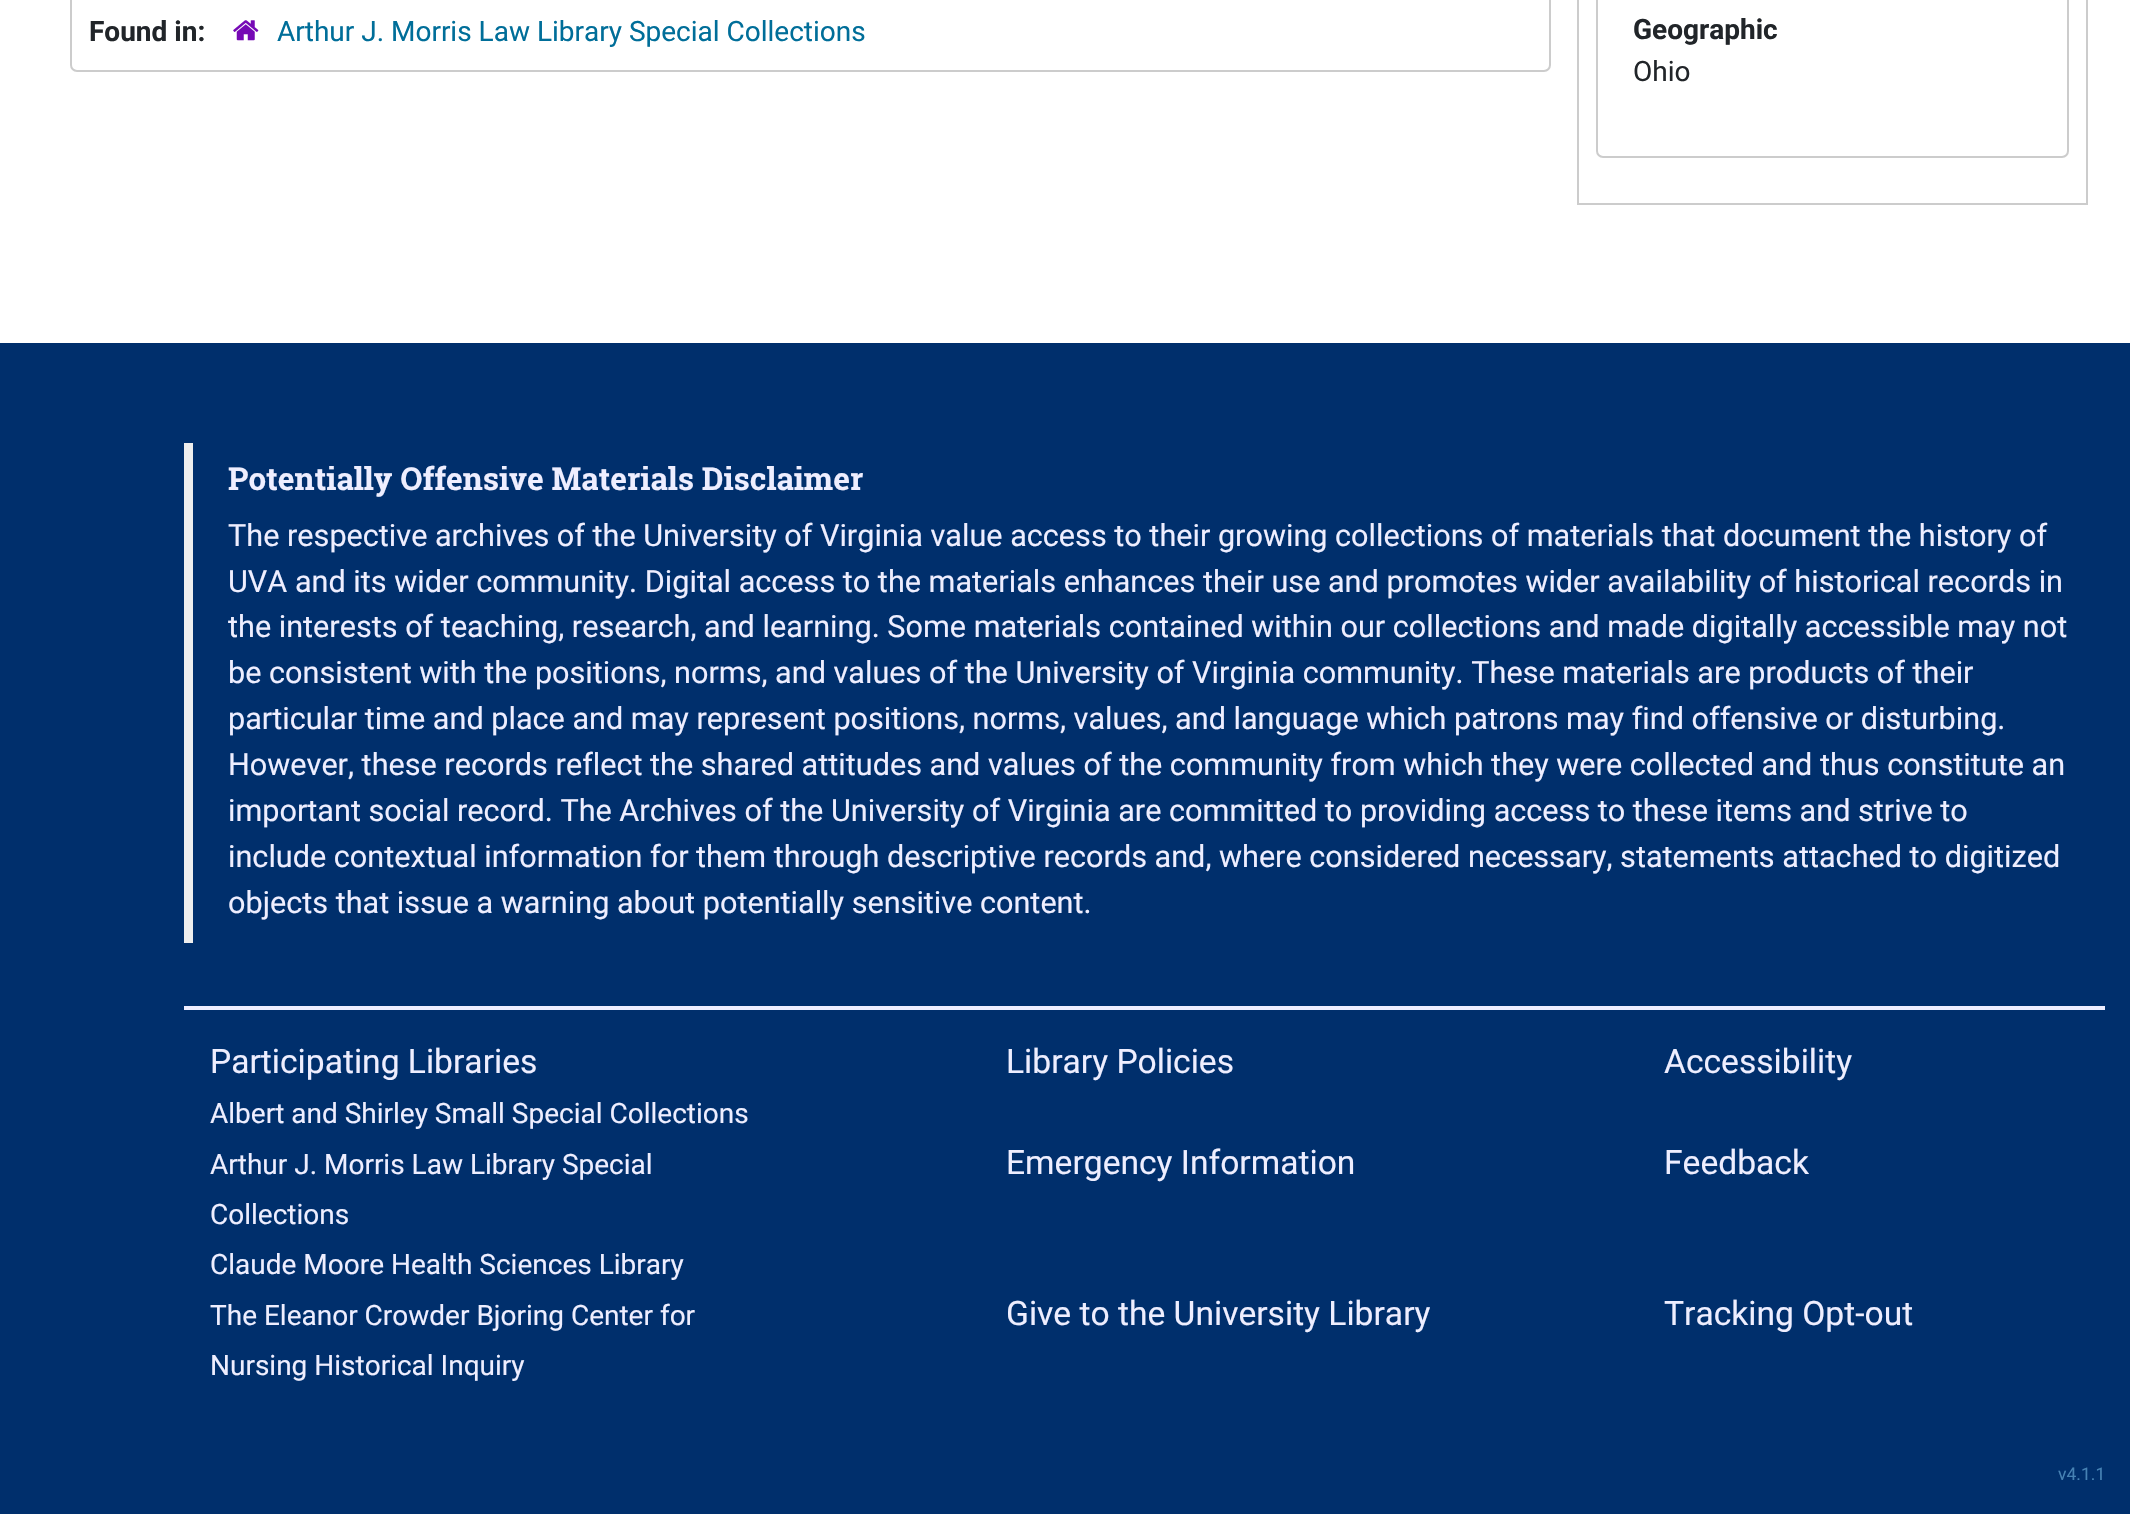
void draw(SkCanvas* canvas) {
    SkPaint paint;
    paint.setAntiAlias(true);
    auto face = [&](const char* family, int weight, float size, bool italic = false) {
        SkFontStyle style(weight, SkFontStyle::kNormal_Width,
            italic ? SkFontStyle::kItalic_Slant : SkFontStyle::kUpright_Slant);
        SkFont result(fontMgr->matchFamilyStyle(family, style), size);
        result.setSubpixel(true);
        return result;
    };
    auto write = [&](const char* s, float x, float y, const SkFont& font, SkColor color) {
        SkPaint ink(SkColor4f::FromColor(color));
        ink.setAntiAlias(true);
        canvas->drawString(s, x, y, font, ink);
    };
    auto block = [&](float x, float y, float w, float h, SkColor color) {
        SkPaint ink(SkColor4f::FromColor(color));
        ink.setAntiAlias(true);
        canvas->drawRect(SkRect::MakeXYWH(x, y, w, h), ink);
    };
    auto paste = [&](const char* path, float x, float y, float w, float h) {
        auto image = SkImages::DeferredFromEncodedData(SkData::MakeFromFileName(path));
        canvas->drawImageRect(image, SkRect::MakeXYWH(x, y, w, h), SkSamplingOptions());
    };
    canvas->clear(SK_ColorWHITE);
    paint.setStyle(SkPaint::kStroke_Style);
    paint.setStrokeWidth(2);
    paint.setColor(SkColorSetRGB(204, 204, 204));
    canvas->drawRoundRect(SkRect::MakeXYWH(71, -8, 1479, 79), 6, 6, paint);
    auto kFont1 = face("Roboto", 700, 28);
    write("Found in:", 89, 41, kFont1, SkColorSetRGB(33, 37, 41));
    paste("pic1.png", 233, 20, 26, 21);
    auto kFont2 = face("Roboto", 400, 28);
    write("Arthur J. Morris Law Library Special Collections", 277, 41, kFont2, SkColorSetRGB(0, 110, 153));
    canvas->drawRect(SkRect::MakeXYWH(1578, -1, 509, 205), paint);
    canvas->drawRoundRect(SkRect::MakeXYWH(1597, -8, 471, 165), 6, 6, paint);
    write("Geographic", 1633, 39, kFont1, SkColorSetRGB(33, 37, 41));
    write("Ohio", 1633, 81, kFont2, SkColorSetRGB(33, 37, 41));
    block(0, 343, 2130, 1171, SkColorSetRGB(0, 47, 108));
    block(184, 443, 9, 500, SkColorSetRGB(238, 238, 238));
    auto kFont3 = face("Roboto Slab", 700, 31.5f);
    write("Potentially Offensive Materials Disclaimer", 228, 490, kFont3, SkColorSetRGB(238, 238, 255));
    auto kFont4 = face("Roboto", 400, 30.62f);
    write("The respective archives of the University of Virginia value access to their growing collections of materials that document the history of", 228, 546, kFont4, SkColorSetRGB(238, 238, 255));
    write("UVA and its wider community. Digital access to the materials enhances their use and promotes wider availability of historical records in", 228, 592, kFont4, SkColorSetRGB(238, 238, 255));
    write("the interests of teaching, research, and learning. Some materials contained within our collections and made digitally accessible may not", 228, 637, kFont4, SkColorSetRGB(238, 238, 255));
    write("be consistent with the positions, norms, and values of the University of Virginia community. These materials are products of their", 228, 683, kFont4, SkColorSetRGB(238, 238, 255));
    write("particular time and place and may represent positions, norms, values, and language which patrons may find offensive or disturbing.", 228, 729, kFont4, SkColorSetRGB(238, 238, 255));
    write("However, these records reflect the shared attitudes and values of the community from which they were collected and thus constitute an", 228, 775, kFont4, SkColorSetRGB(238, 238, 255));
    write("important social record. The Archives of the University of Virginia are committed to providing access to these items and strive to", 228, 821, kFont4, SkColorSetRGB(238, 238, 255));
    write("include contextual information for them through descriptive records and, where considered necessary, statements attached to digitized", 228, 867, kFont4, SkColorSetRGB(238, 238, 255));
    write("objects that issue a warning about potentially sensitive content.", 228, 913, kFont4, SkColorSetRGB(238, 238, 255));
    block(184, 1006, 1921, 4, SkColorSetRGB(238, 238, 255));
    auto kFont5 = face("Roboto", 400, 33.6f);
    write("Participating Libraries", 210, 1073, kFont5, SkColorSetRGB(238, 238, 255));
    write("Library Policies", 1006, 1073, kFont5, SkColorSetRGB(238, 238, 255));
    write("Accessibility", 1664, 1073, kFont5, SkColorSetRGB(238, 238, 255));
    write("Albert and Shirley Small Special Collections", 210, 1123, kFont2, SkColorSetRGB(238, 238, 255));
    write("Arthur J. Morris Law Library Special", 210, 1174, kFont2, SkColorSetRGB(238, 238, 255));
    write("Collections", 210, 1224, kFont2, SkColorSetRGB(238, 238, 255));
    write("Emergency Information", 1006, 1174, kFont5, SkColorSetRGB(238, 238, 255));
    write("Feedback", 1664, 1174, kFont5, SkColorSetRGB(238, 238, 255));
    write("Claude Moore Health Sciences Library", 210, 1274, kFont2, SkColorSetRGB(238, 238, 255));
    write("The Eleanor Crowder Bjoring Center for", 210, 1325, kFont2, SkColorSetRGB(238, 238, 255));
    write("Nursing Historical Inquiry", 210, 1375, kFont2, SkColorSetRGB(238, 238, 255));
    write("Give to the University Library", 1006, 1325, kFont5, SkColorSetRGB(238, 238, 255));
    write("Tracking Opt-out", 1664, 1325, kFont5, SkColorSetRGB(238, 238, 255));
    auto kFont6 = face("Roboto", 400, 17.5f);
    write("v4.1.1", 2058, 1480, kFont6, SkColorSetRGB(70, 130, 180));
}
